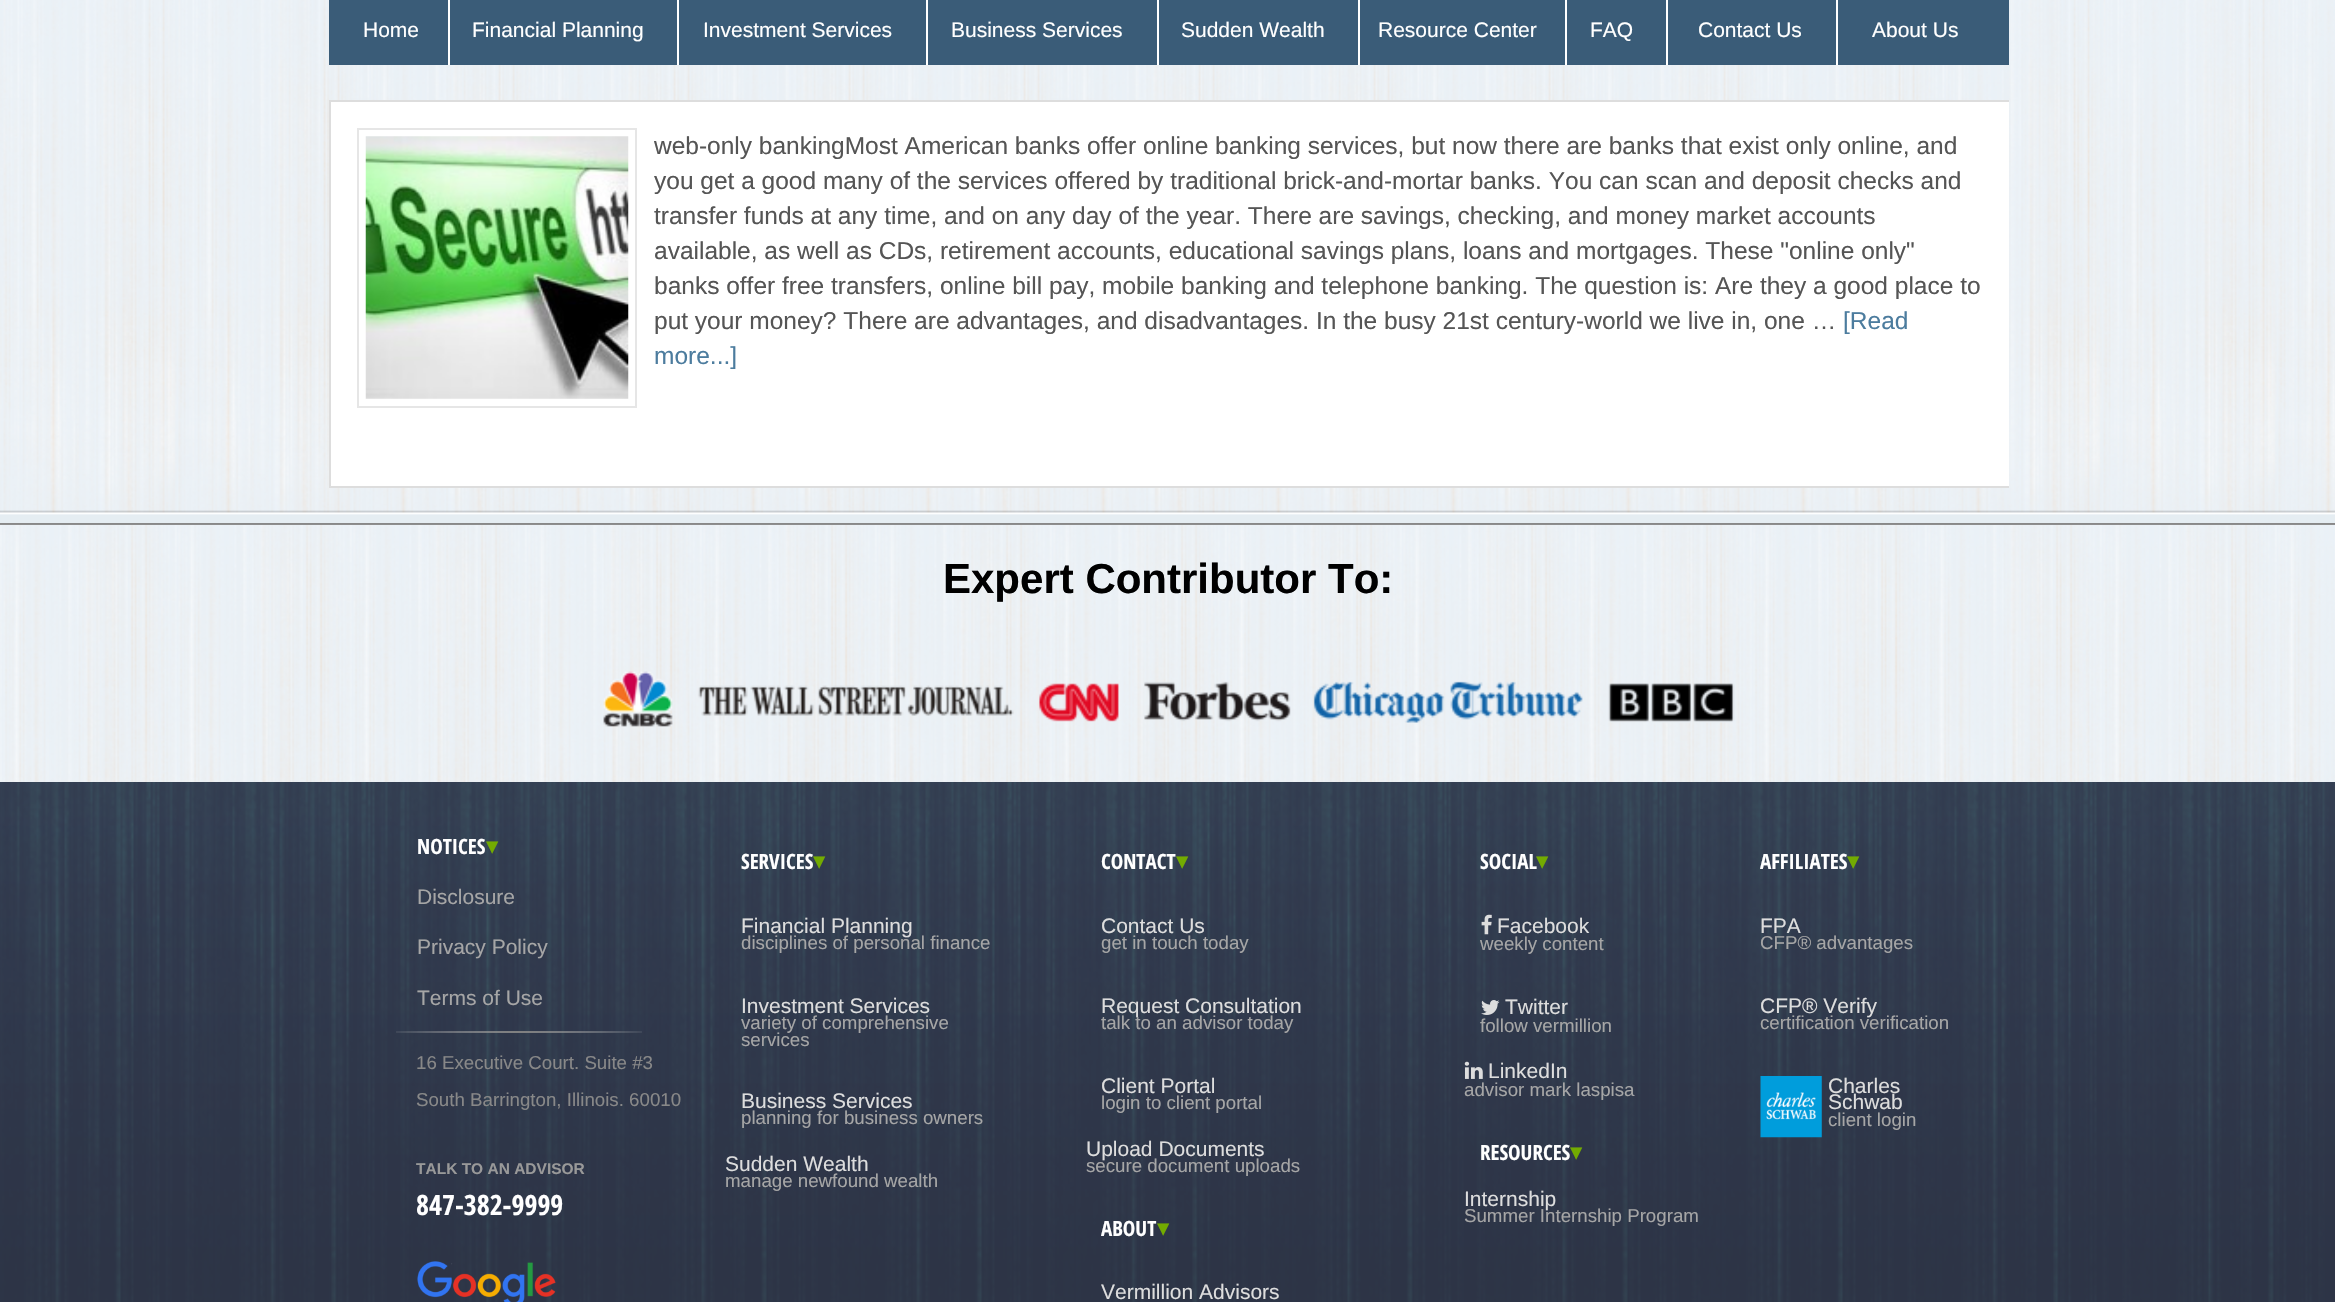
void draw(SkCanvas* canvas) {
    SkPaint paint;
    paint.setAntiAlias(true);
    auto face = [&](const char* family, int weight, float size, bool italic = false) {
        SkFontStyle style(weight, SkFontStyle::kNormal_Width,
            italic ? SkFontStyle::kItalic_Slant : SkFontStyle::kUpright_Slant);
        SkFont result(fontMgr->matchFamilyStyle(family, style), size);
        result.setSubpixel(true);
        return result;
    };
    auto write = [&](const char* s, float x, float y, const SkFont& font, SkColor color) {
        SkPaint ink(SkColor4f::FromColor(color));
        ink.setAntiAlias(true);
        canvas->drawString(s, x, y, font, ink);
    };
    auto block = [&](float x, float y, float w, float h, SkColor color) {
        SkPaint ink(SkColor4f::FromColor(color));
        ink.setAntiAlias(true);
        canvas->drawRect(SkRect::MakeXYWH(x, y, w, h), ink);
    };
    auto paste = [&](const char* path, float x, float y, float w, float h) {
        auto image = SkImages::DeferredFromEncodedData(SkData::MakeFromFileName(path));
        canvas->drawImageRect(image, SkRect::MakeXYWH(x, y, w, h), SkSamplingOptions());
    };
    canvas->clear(SkColorSetRGB(229, 237, 242));
    paste("pic1.png", 0, 0, 2335, 515);
    block(329, 0, 1680, 65, SkColorSetRGB(58, 92, 120));
    block(448, 0, 2, 65, SK_ColorWHITE);
    auto kFont1 = face("Liberation Sans", 400, 21);
    write("Home", 363, 37, kFont1, SK_ColorWHITE);
    block(677, 0, 2, 65, SK_ColorWHITE);
    write("Financial Planning", 472, 37, kFont1, SK_ColorWHITE);
    block(926, 0, 2, 65, SK_ColorWHITE);
    write("Investment Services", 703, 37, kFont1, SK_ColorWHITE);
    block(1157, 0, 2, 65, SK_ColorWHITE);
    write("Business Services", 951, 37, kFont1, SK_ColorWHITE);
    block(1358, 0, 2, 65, SK_ColorWHITE);
    write("Sudden Wealth", 1181, 37, kFont1, SK_ColorWHITE);
    block(1565, 0, 2, 65, SK_ColorWHITE);
    write("Resource Center", 1378, 37, kFont1, SK_ColorWHITE);
    block(1666, 0, 2, 65, SK_ColorWHITE);
    write("FAQ", 1590, 37, kFont1, SK_ColorWHITE);
    block(1836, 0, 2, 65, SK_ColorWHITE);
    write("Contact Us", 1698, 37, kFont1, SK_ColorWHITE);
    write("About Us", 1872, 37, kFont1, SK_ColorWHITE);
    block(331, 102, 1678, 384, SK_ColorWHITE);
    canvas->save();
    canvas->clipRect(SkRect::MakeXYWH(329, 100, 1680, 388));
    paint.setStyle(SkPaint::kStroke_Style);
    paint.setStrokeWidth(2);
    paint.setColor(SkColorSetRGB(221, 221, 221));
    canvas->drawRect(SkRect::MakeXYWH(330, 101, 1682, 386), paint);
    canvas->restore();
    paint.setColor(SkColorSetRGB(230, 230, 230));
    canvas->drawRect(SkRect::MakeXYWH(358, 129, 278, 278), paint);
    paste("pic2.png", 365, 136, 264, 263);
    auto kFont2 = face("Liberation Sans", 400, 24.5f);
    write("web-only bankingMost American banks offer online banking services, but now there are banks that exist only online, and", 654, 154, kFont2, SkColorSetRGB(85, 85, 85));
    write("you get a good many of the services offered by traditional brick-and-mortar banks. You can scan and deposit checks and", 654, 189, kFont2, SkColorSetRGB(85, 85, 85));
    write("transfer funds at any time, and on any day of the year. There are savings, checking, and money market accounts", 654, 224, kFont2, SkColorSetRGB(85, 85, 85));
    write("available, as well as CDs, retirement accounts, educational savings plans, loans and mortgages. These \"online only\"", 654, 259, kFont2, SkColorSetRGB(85, 85, 85));
    write("banks offer free transfers, online bill pay, mobile banking and telephone banking. The question is: Are they a good place to", 654, 294, kFont2, SkColorSetRGB(85, 85, 85));
    write("put your money? There are advantages, and disadvantages. In the busy 21st century-world we live in, one …", 654, 329, kFont2, SkColorSetRGB(85, 85, 85));
    write("[Read", 1843, 329, kFont2, SkColorSetRGB(76, 124, 158));
    write("more...]", 654, 364, kFont2, SkColorSetRGB(76, 124, 158));
    paste("pic3.png", 0, 782, 2335, 520);
    block(0, 523, 2335, 2, SkColorSetRGB(136, 136, 136));
    paste("pic4.png", 0, 524, 2335, 258);
    auto kFont3 = face("Liberation Sans", 700, 42);
    write("Expert Contributor To:", 943, 593, kFont3, SK_ColorBLACK);
    paste("pic5.png", 603, 671, 1132, 56);
    auto kFont4 = face("Open Sans Condensed", 700, 21);
    write("NOTICES", 417, 854, kFont4, SK_ColorWHITE);
    auto kFont5 = face("DejaVu Sans", 400, 24.5f);
    write("▾", 486, 854, kFont5, SkColorSetRGB(115, 171, 1));
    write("Disclosure", 417, 904, kFont1, SkColorSetRGB(166, 166, 166));
    write("Privacy Policy", 417, 954, kFont1, SkColorSetRGB(166, 166, 166));
    write("Terms of Use", 417, 1005, kFont1, SkColorSetRGB(166, 166, 166));
    auto kFont6 = face("Liberation Sans", 400, 18.7f);
    write("16 Executive Court. Suite #3", 416, 1069, kFont6, SkColorSetRGB(136, 136, 136));
    write("South Barrington, Illinois. 60010", 416, 1106, kFont6, SkColorSetRGB(136, 136, 136));
    auto kFont7 = face("Liberation Sans", 700, 15.5f);
    write("TALK TO AN ADVISOR", 416, 1174, kFont7, SkColorSetRGB(153, 153, 153));
    auto kFont8 = face("Open Sans Condensed", 700, 28);
    write("847-382-9999", 416, 1215, kFont8, SK_ColorWHITE);
    paste("pic6.png", 417, 1261, 139, 41);
    write("SERVICES", 741, 869, kFont4, SK_ColorWHITE);
    write("▾", 813, 869, kFont5, SkColorSetRGB(115, 171, 1));
    write("Financial Planning", 741, 933, kFont1, SkColorSetRGB(221, 221, 221));
    write("disciplines of personal finance", 741, 949, kFont6, SkColorSetRGB(166, 166, 166));
    write("Investment Services", 741, 1013, kFont1, SkColorSetRGB(221, 221, 221));
    write("variety of comprehensive", 741, 1029, kFont6, SkColorSetRGB(166, 166, 166));
    write("services", 741, 1046, kFont6, SkColorSetRGB(166, 166, 166));
    write("Business Services", 741, 1108, kFont1, SkColorSetRGB(221, 221, 221));
    write("planning for business owners", 741, 1124, kFont6, SkColorSetRGB(166, 166, 166));
    write("Sudden Wealth", 725, 1171, kFont1, SkColorSetRGB(221, 221, 221));
    write("manage newfound wealth", 725, 1187, kFont6, SkColorSetRGB(166, 166, 166));
    write("CONTACT", 1101, 869, kFont4, SK_ColorWHITE);
    write("▾", 1176, 869, kFont5, SkColorSetRGB(115, 171, 1));
    write("Contact Us", 1101, 933, kFont1, SkColorSetRGB(221, 221, 221));
    write("get in touch today", 1101, 949, kFont6, SkColorSetRGB(166, 166, 166));
    write("Request Consultation", 1101, 1013, kFont1, SkColorSetRGB(221, 221, 221));
    write("talk to an advisor today", 1101, 1029, kFont6, SkColorSetRGB(166, 166, 166));
    write("Client Portal", 1101, 1093, kFont1, SkColorSetRGB(221, 221, 221));
    write("login to client portal", 1101, 1109, kFont6, SkColorSetRGB(166, 166, 166));
    write("Upload Documents", 1086, 1156, kFont1, SkColorSetRGB(221, 221, 221));
    write("secure document uploads", 1086, 1172, kFont6, SkColorSetRGB(166, 166, 166));
    write("ABOUT", 1101, 1236, kFont4, SK_ColorWHITE);
    write("▾", 1157, 1236, kFont5, SkColorSetRGB(115, 171, 1));
    write("Vermillion Advisors", 1101, 1299, kFont1, SkColorSetRGB(221, 221, 221));
    write("SOCIAL", 1480, 869, kFont4, SK_ColorWHITE);
    write("▾", 1536, 869, kFont5, SkColorSetRGB(115, 171, 1));
    paste("pic7.png", 1481, 914, 11, 21);
    write("Facebook", 1497, 933, kFont1, SkColorSetRGB(221, 221, 221));
    write("weekly content", 1480, 950, kFont6, SkColorSetRGB(166, 166, 166));
    paste("pic8.png", 1481, 1000, 19, 15);
    write("Twitter", 1505, 1014, kFont1, SkColorSetRGB(221, 221, 221));
    write("follow vermillion", 1480, 1032, kFont6, SkColorSetRGB(166, 166, 166));
    paste("pic9.png", 1464, 1061, 19, 18);
    write("LinkedIn", 1488, 1078, kFont1, SkColorSetRGB(221, 221, 221));
    write("advisor mark laspisa", 1464, 1096, kFont6, SkColorSetRGB(166, 166, 166));
    write("RESOURCES", 1480, 1160, kFont4, SK_ColorWHITE);
    write("▾", 1570, 1160, kFont5, SkColorSetRGB(115, 171, 1));
    write("Internship", 1464, 1206, kFont1, SkColorSetRGB(221, 221, 221));
    write("Summer Internship Program", 1464, 1222, kFont6, SkColorSetRGB(166, 166, 166));
    write("AFFILIATES", 1760, 869, kFont4, SK_ColorWHITE);
    write("▾", 1847, 869, kFont5, SkColorSetRGB(115, 171, 1));
    write("FPA", 1760, 933, kFont1, SkColorSetRGB(221, 221, 221));
    write("CFP® advantages", 1760, 949, kFont6, SkColorSetRGB(166, 166, 166));
    write("CFP® Verify", 1760, 1013, kFont1, SkColorSetRGB(221, 221, 221));
    write("certification verification", 1760, 1029, kFont6, SkColorSetRGB(166, 166, 166));
    paste("pic10.png", 1760, 1076, 62, 62);
    write("Charles", 1828, 1093, kFont1, SkColorSetRGB(221, 221, 221));
    write("Schwab", 1828, 1109, kFont1, SkColorSetRGB(221, 221, 221));
    write("client login", 1828, 1126, kFont6, SkColorSetRGB(166, 166, 166));
}
